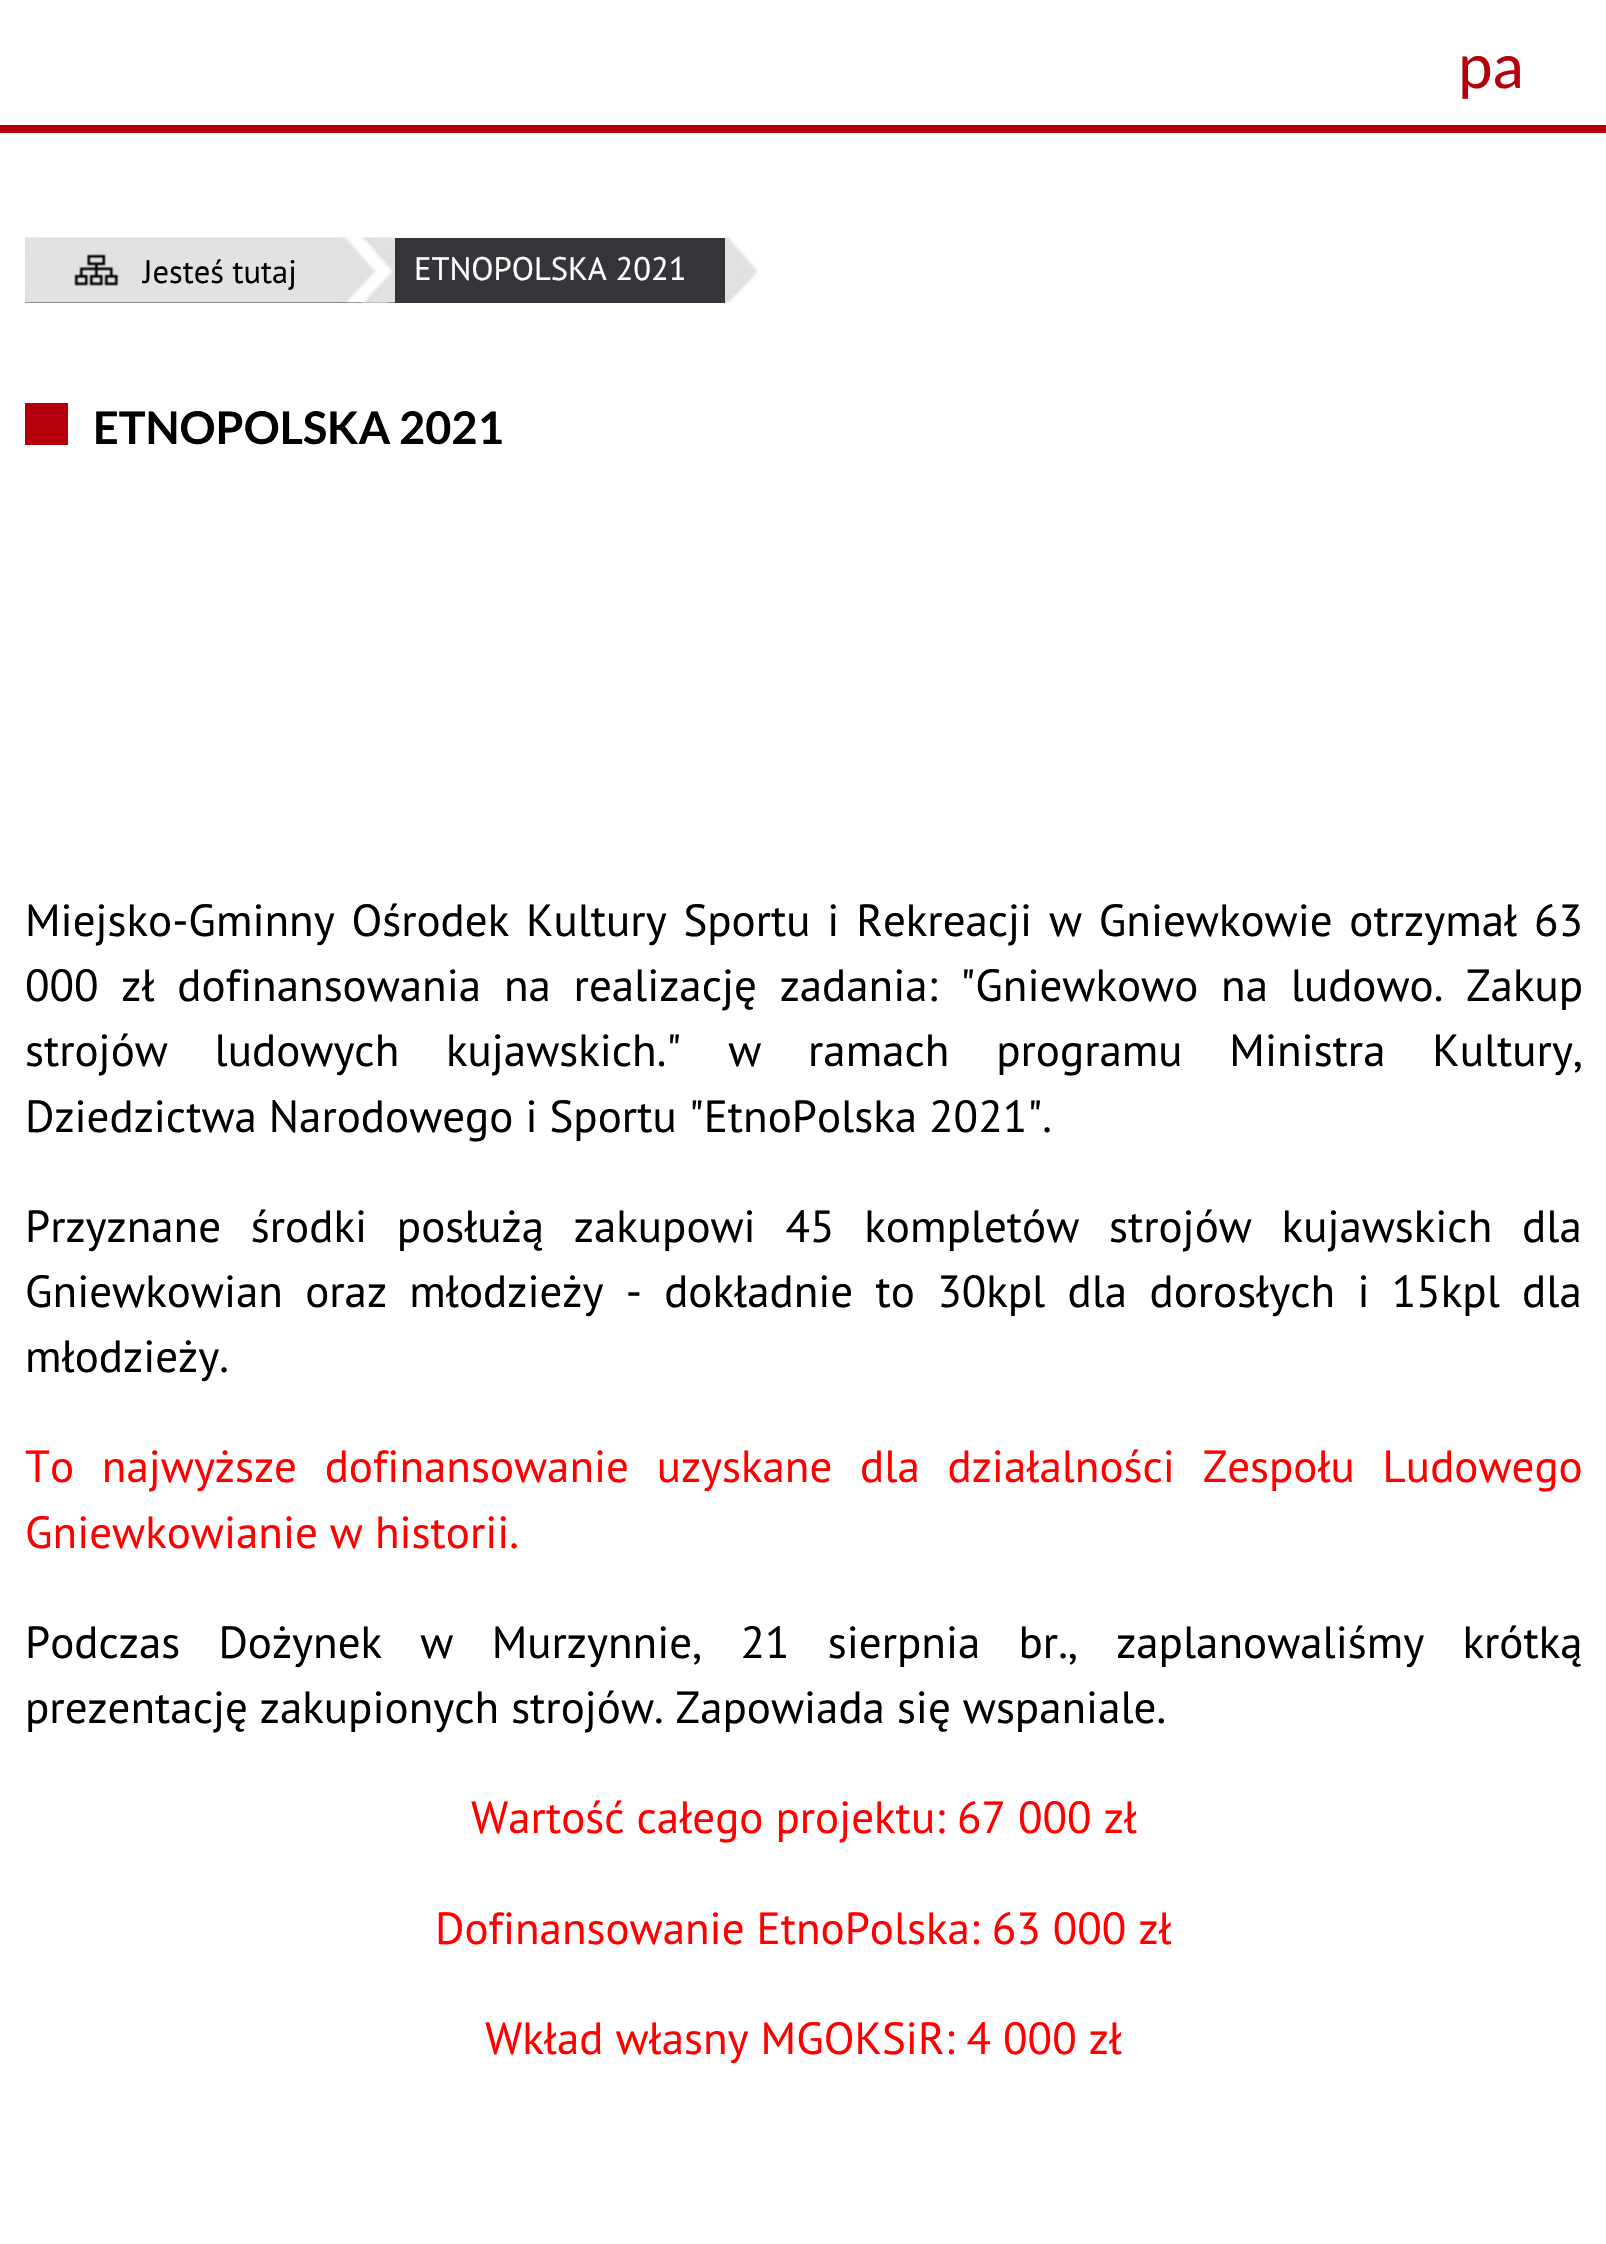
void draw(SkCanvas* canvas) {
    SkPaint paint;
    paint.setAntiAlias(true);
    auto face = [&](const char* family, int weight, float size, bool italic = false) {
        SkFontStyle style(weight, SkFontStyle::kNormal_Width,
            italic ? SkFontStyle::kItalic_Slant : SkFontStyle::kUpright_Slant);
        SkFont result(fontMgr->matchFamilyStyle(family, style), size);
        result.setSubpixel(true);
        return result;
    };
    auto write = [&](const char* s, float x, float y, const SkFont& font, SkColor color) {
        SkPaint ink(SkColor4f::FromColor(color));
        ink.setAntiAlias(true);
        canvas->drawString(s, x, y, font, ink);
    };
    auto writeSpaced = [&](const char* s, float x, float y, const SkFont& font, const SkPaint& ink, float letter, float word) {
        std::vector<SkGlyphID> glyphs(font.countText(s, strlen(s), SkTextEncoding::kUTF8));
        std::vector<float> xs(glyphs.size());
        font.textToGlyphs(s, strlen(s), SkTextEncoding::kUTF8, glyphs);
        font.getXPos(glyphs, xs, x);
        float extra = 0;
        for (size_t i = 0; i < glyphs.size(); i++) {
            xs[i] += extra;
            extra += letter + word * (glyphs[i] == font.unicharToGlyph(' '));
        }
        canvas->drawTextBlob(SkTextBlob::MakeFromPosHGlyphs(glyphs, xs, y, font), 0, 0, ink);
    };
    auto block = [&](float x, float y, float w, float h, SkColor color) {
        SkPaint ink(SkColor4f::FromColor(color));
        ink.setAntiAlias(true);
        canvas->drawRect(SkRect::MakeXYWH(x, y, w, h), ink);
    };
    auto paste = [&](const char* path, float x, float y, float w, float h) {
        auto image = SkImages::DeferredFromEncodedData(SkData::MakeFromFileName(path));
        canvas->drawImageRect(image, SkRect::MakeXYWH(x, y, w, h), SkSamplingOptions());
    };
    canvas->clear(SK_ColorWHITE);
    block(0, 125, 1606, 8, SkColorSetRGB(181, 0, 12));
    auto kFont1 = face("Lato", 400, 62);
    write("pa", 1458, 88, kFont1, SkColorSetRGB(181, 0, 12));
    block(25, 302, 370, 1, SkColorSetRGB(52, 53, 57));
    paste("pic1.png", 25, 237, 363, 66);
    auto kFont2 = face("PT Sans", 400, 32.5f);
    write("Jesteś tutaj", 143, 283, kFont2, SK_ColorBLACK);
    block(395, 238, 330, 65, SkColorSetRGB(52, 53, 57));
    paste("pic2.png", 362, 237, 33, 66);
    write("ETNOPOLSKA 2021", 414, 280, kFont2, SK_ColorWHITE);
    paste("pic3.png", 725, 237, 33, 66);
    block(25, 403, 43, 42, SkColorSetRGB(181, 0, 12));
    auto kFont3 = face("Lato", 700, 45);
    write("ETNOPOLSKA 2021", 93, 444, kFont3, SK_ColorBLACK);
    auto kFont4 = face("PT Sans", 400, 45);
    paint.setColor(SK_ColorBLACK);
    writeSpaced("Miejsko-Gminny Ośrodek Kultury Sportu i Rekreacji w Gniewkowie otrzymał 63", 25, 936, kFont4, paint, 0, 4.75f);
    writeSpaced("000 zł dofinansowania na realizację zadania: \"Gniewkowo na ludowo. Zakup", 25, 1001, kFont4, paint, 0, 10.75f);
    writeSpaced("strojów ludowych kujawskich.\" w ramach programu Ministra Kultury,", 25, 1066, kFont4, paint, 0, 34.75f);
    write("Dziedzictwa Narodowego i Sportu \"EtnoPolska 2021\".", 25, 1132, kFont4, SK_ColorBLACK);
    writeSpaced("Przyznane środki posłużą zakupowi 45 kompletów strojów kujawskich dla", 25, 1242, kFont4, paint, 0, 17.75f);
    writeSpaced("Gniewkowian oraz młodzieży - dokładnie to 30kpl dla dorosłych i 15kpl dla", 25, 1307, kFont4, paint, 0, 10.25f);
    write("młodzieży.", 25, 1372, kFont4, SK_ColorBLACK);
    paint.setColor(SkColorSetRGB(255, 0, 0));
    writeSpaced("To najwyższe dofinansowanie uzyskane dla działalności Zespołu Ludowego", 25, 1482, kFont4, paint, 0, 15.75f);
    write("Gniewkowianie w historii.", 25, 1548, kFont4, SkColorSetRGB(255, 0, 0));
    paint.setColor(SK_ColorBLACK);
    writeSpaced("Podczas Dożynek w Murzynnie, 21 sierpnia br., zaplanowaliśmy krótką", 25, 1658, kFont4, paint, 0, 26.25f);
    write("prezentację zakupionych strojów. Zapowiada się wspaniale.", 25, 1723, kFont4, SK_ColorBLACK);
    write("Wartość całego projektu: 67 000 zł", 471, 1833, kFont4, SkColorSetRGB(255, 0, 0));
    write("Dofinansowanie EtnoPolska: 63 000 zł", 435, 1944, kFont4, SkColorSetRGB(255, 0, 0));
    write("Wkład własny MGOKSiR: 4 000 zł", 485, 2054, kFont4, SkColorSetRGB(255, 0, 0));
}
